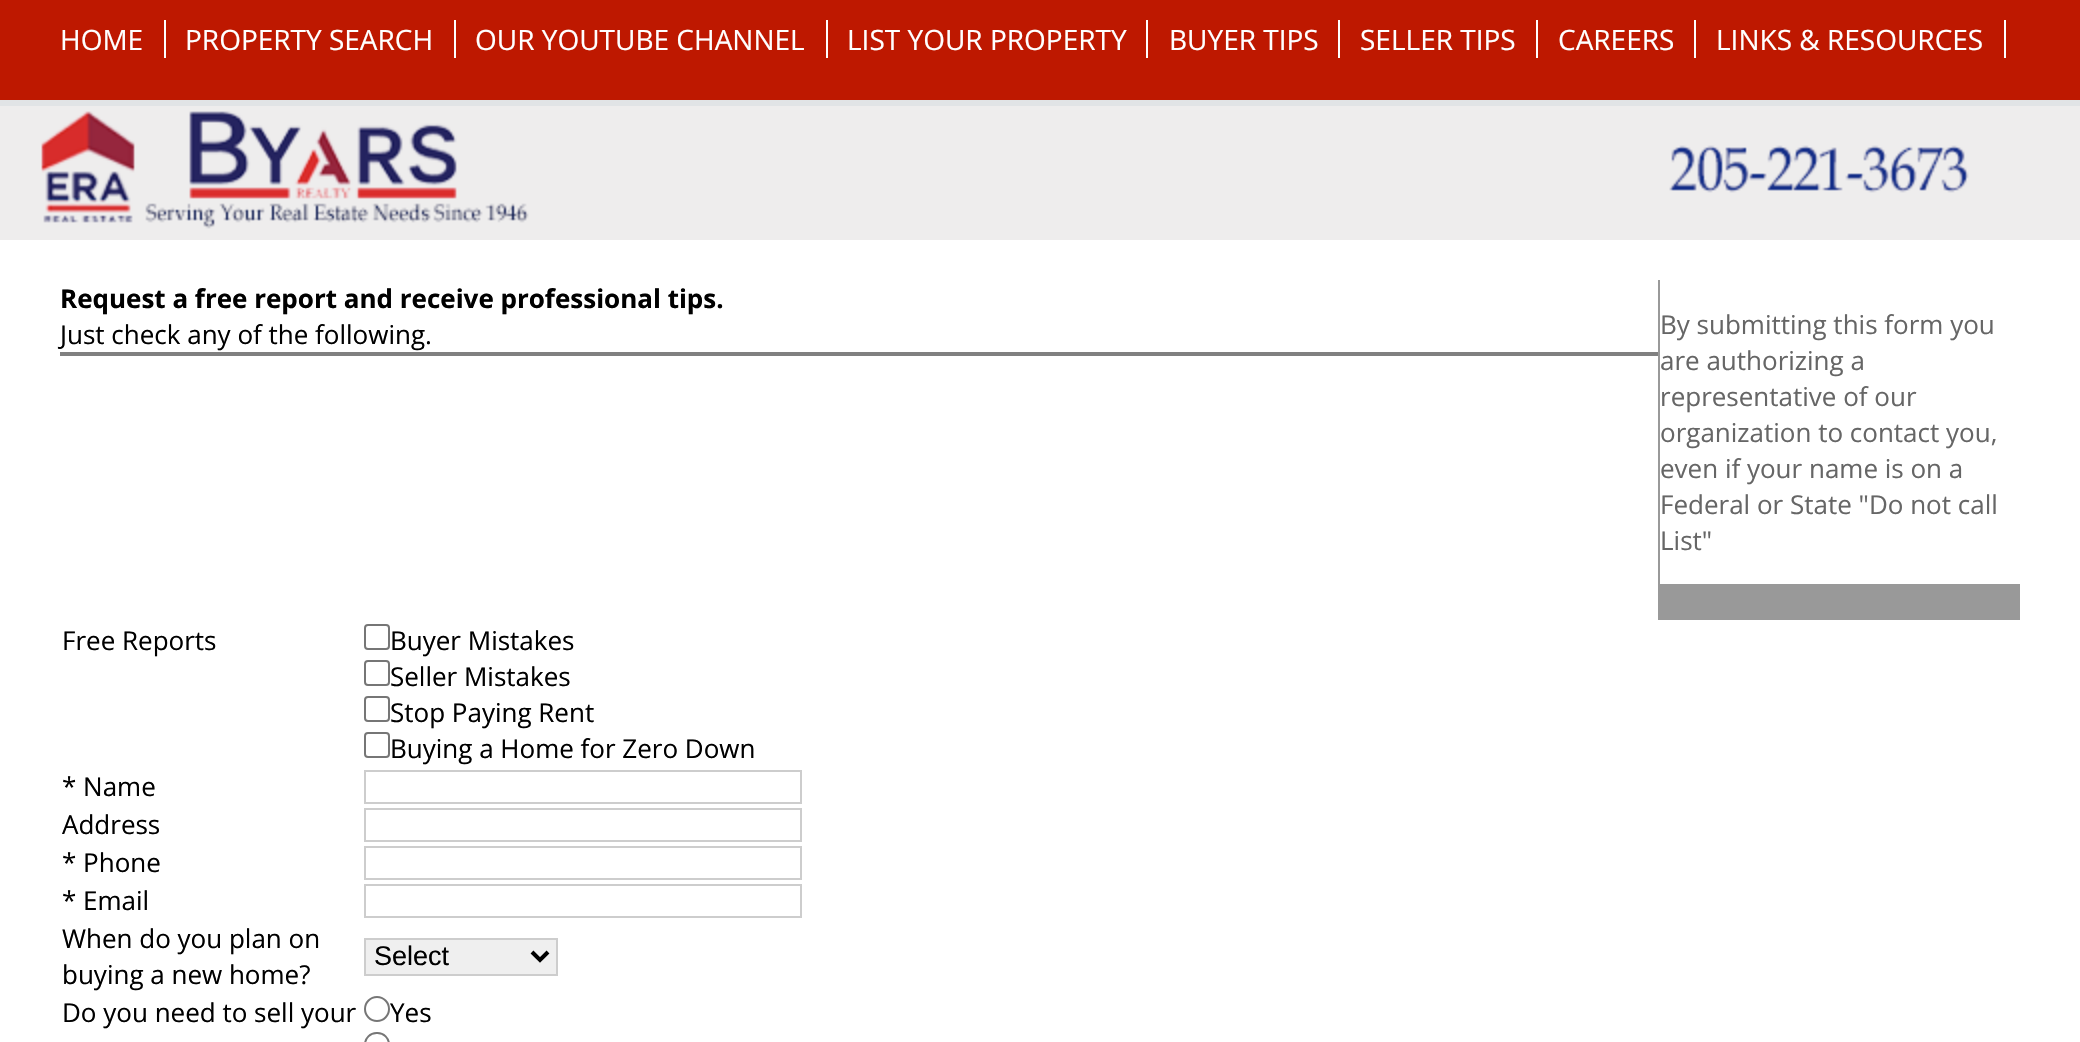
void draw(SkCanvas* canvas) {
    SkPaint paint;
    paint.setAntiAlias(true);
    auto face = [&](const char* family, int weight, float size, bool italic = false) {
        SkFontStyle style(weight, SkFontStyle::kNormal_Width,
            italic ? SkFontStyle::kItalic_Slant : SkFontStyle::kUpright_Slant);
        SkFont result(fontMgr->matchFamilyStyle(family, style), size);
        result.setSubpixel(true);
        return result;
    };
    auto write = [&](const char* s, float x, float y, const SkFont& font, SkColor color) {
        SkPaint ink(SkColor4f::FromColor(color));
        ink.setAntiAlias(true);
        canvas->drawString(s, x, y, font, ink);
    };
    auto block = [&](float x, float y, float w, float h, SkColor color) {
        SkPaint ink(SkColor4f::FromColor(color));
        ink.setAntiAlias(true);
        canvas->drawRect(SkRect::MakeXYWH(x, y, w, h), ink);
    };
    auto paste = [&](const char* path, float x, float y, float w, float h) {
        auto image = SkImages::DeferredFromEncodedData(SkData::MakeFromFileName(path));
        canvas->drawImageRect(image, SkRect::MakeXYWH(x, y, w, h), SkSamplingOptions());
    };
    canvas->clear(SK_ColorWHITE);
    block(0, 0, 2080, 100, SkColorSetRGB(190, 24, 0));
    block(0, 100, 2080, 6, SkColorSetRGB(225, 228, 230));
    block(164, 20, 2, 38, SK_ColorWHITE);
    auto kFont1 = face("Open Sans", 400, 28);
    write("HOME", 60, 50, kFont1, SK_ColorWHITE);
    block(454, 20, 2, 38, SK_ColorWHITE);
    write("PROPERTY SEARCH", 185, 50, kFont1, SK_ColorWHITE);
    block(826, 20, 2, 38, SK_ColorWHITE);
    write("OUR YOUTUBE CHANNEL", 475, 50, kFont1, SK_ColorWHITE);
    block(1146, 20, 2, 38, SK_ColorWHITE);
    write("LIST YOUR PROPERTY", 847, 50, kFont1, SK_ColorWHITE);
    block(1338, 20, 2, 38, SK_ColorWHITE);
    write("BUYER TIPS", 1169, 50, kFont1, SK_ColorWHITE);
    block(1536, 20, 2, 38, SK_ColorWHITE);
    write("SELLER TIPS", 1360, 50, kFont1, SK_ColorWHITE);
    block(1694, 20, 2, 38, SK_ColorWHITE);
    write("CAREERS", 1558, 50, kFont1, SK_ColorWHITE);
    block(2004, 20, 2, 38, SK_ColorWHITE);
    write("LINKS & RESOURCES", 1716, 50, kFont1, SK_ColorWHITE);
    block(0, 106, 2080, 134, SkColorSetRGB(238, 237, 237));
    paste("pic1.png", 41, 111, 1928, 118);
    auto kFont2 = face("Open Sans", 700, 26);
    write("Request a free report and receive professional tips.", 60, 308, kFont2, SK_ColorBLACK);
    auto kFont3 = face("Open Sans", 400, 26);
    write("Just check any of the following.", 60, 344, kFont3, SK_ColorBLACK);
    block(1658, 280, 2, 340, SkColorSetRGB(153, 153, 153));
    write("By submitting this form you", 1660, 334, kFont3, SkColorSetRGB(102, 102, 102));
    write("are authorizing a", 1660, 370, kFont3, SkColorSetRGB(102, 102, 102));
    write("representative of our", 1660, 406, kFont3, SkColorSetRGB(102, 102, 102));
    write("organization to contact you,", 1660, 442, kFont3, SkColorSetRGB(102, 102, 102));
    write("even if your name is on a", 1660, 478, kFont3, SkColorSetRGB(102, 102, 102));
    write("Federal or State \"Do not call", 1660, 514, kFont3, SkColorSetRGB(102, 102, 102));
    write("List\"", 1660, 550, kFont3, SkColorSetRGB(102, 102, 102));
    block(1660, 584, 360, 36, SkColorSetRGB(153, 153, 153));
    block(60, 352, 1598, 4, SkColorSetRGB(128, 128, 128));
    write("Free Reports", 62, 650, kFont3, SK_ColorBLACK);
    paint.setStyle(SkPaint::kStroke_Style);
    paint.setStrokeWidth(2);
    paint.setColor(SkColorSetRGB(118, 118, 118));
    canvas->drawRoundRect(SkRect::MakeXYWH(365, 625, 24, 24), 3, 3, paint);
    write("Buyer Mistakes", 390, 650, kFont3, SK_ColorBLACK);
    canvas->drawRoundRect(SkRect::MakeXYWH(365, 661, 24, 24), 3, 3, paint);
    write("Seller Mistakes", 390, 686, kFont3, SK_ColorBLACK);
    canvas->drawRoundRect(SkRect::MakeXYWH(365, 697, 24, 24), 3, 3, paint);
    write("Stop Paying Rent", 390, 722, kFont3, SK_ColorBLACK);
    canvas->drawRoundRect(SkRect::MakeXYWH(365, 733, 24, 24), 3, 3, paint);
    write("Buying a Home for Zero Down", 390, 758, kFont3, SK_ColorBLACK);
    write("* Name", 62, 796, kFont3, SK_ColorBLACK);
    paint.setColor(SkColorSetRGB(205, 205, 205));
    canvas->drawRect(SkRect::MakeXYWH(365, 771, 436, 32), paint);
    write("Address", 62, 834, kFont3, SK_ColorBLACK);
    canvas->drawRect(SkRect::MakeXYWH(365, 809, 436, 32), paint);
    write("* Phone", 62, 872, kFont3, SK_ColorBLACK);
    canvas->drawRect(SkRect::MakeXYWH(365, 847, 436, 32), paint);
    write("* Email", 62, 910, kFont3, SK_ColorBLACK);
    canvas->drawRect(SkRect::MakeXYWH(365, 885, 436, 32), paint);
    write("When do you plan on", 62, 948, kFont3, SK_ColorBLACK);
    write("buying a new home?", 62, 984, kFont3, SK_ColorBLACK);
    paint.setStyle(SkPaint::kFill_Style);
    paint.setColor(SkColorSetRGB(239, 239, 239));
    canvas->drawRect(SkRect::MakeXYWH(365, 939, 192, 36), paint);
    paint.setStyle(SkPaint::kStroke_Style);
    paint.setColor(SkColorSetRGB(205, 205, 205));
    canvas->drawRect(SkRect::MakeXYWH(365, 939, 192, 36), paint);
    paint.setStrokeWidth(4);
    paint.setColor(SK_ColorBLACK);
    canvas->drawPath(SkPathBuilder().moveTo(532, 952).lineTo(540, 960).lineTo(548, 952).detach(), paint);
    auto kFont4 = face("Liberation Sans", 400, 27);
    write("Select", 374, 965, kFont4, SK_ColorBLACK);
    write("Do you need to sell your", 62, 1022, kFont3, SK_ColorBLACK);
    paint.setStrokeWidth(2);
    paint.setColor(SkColorSetRGB(118, 118, 118));
    canvas->drawCircle(377, 1009, 12, paint);
    write("Yes", 390, 1022, kFont3, SK_ColorBLACK);
    canvas->drawRoundRect(SkRect::MakeXYWH(365, 1033, 24, 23), 12, 12, paint);
}
